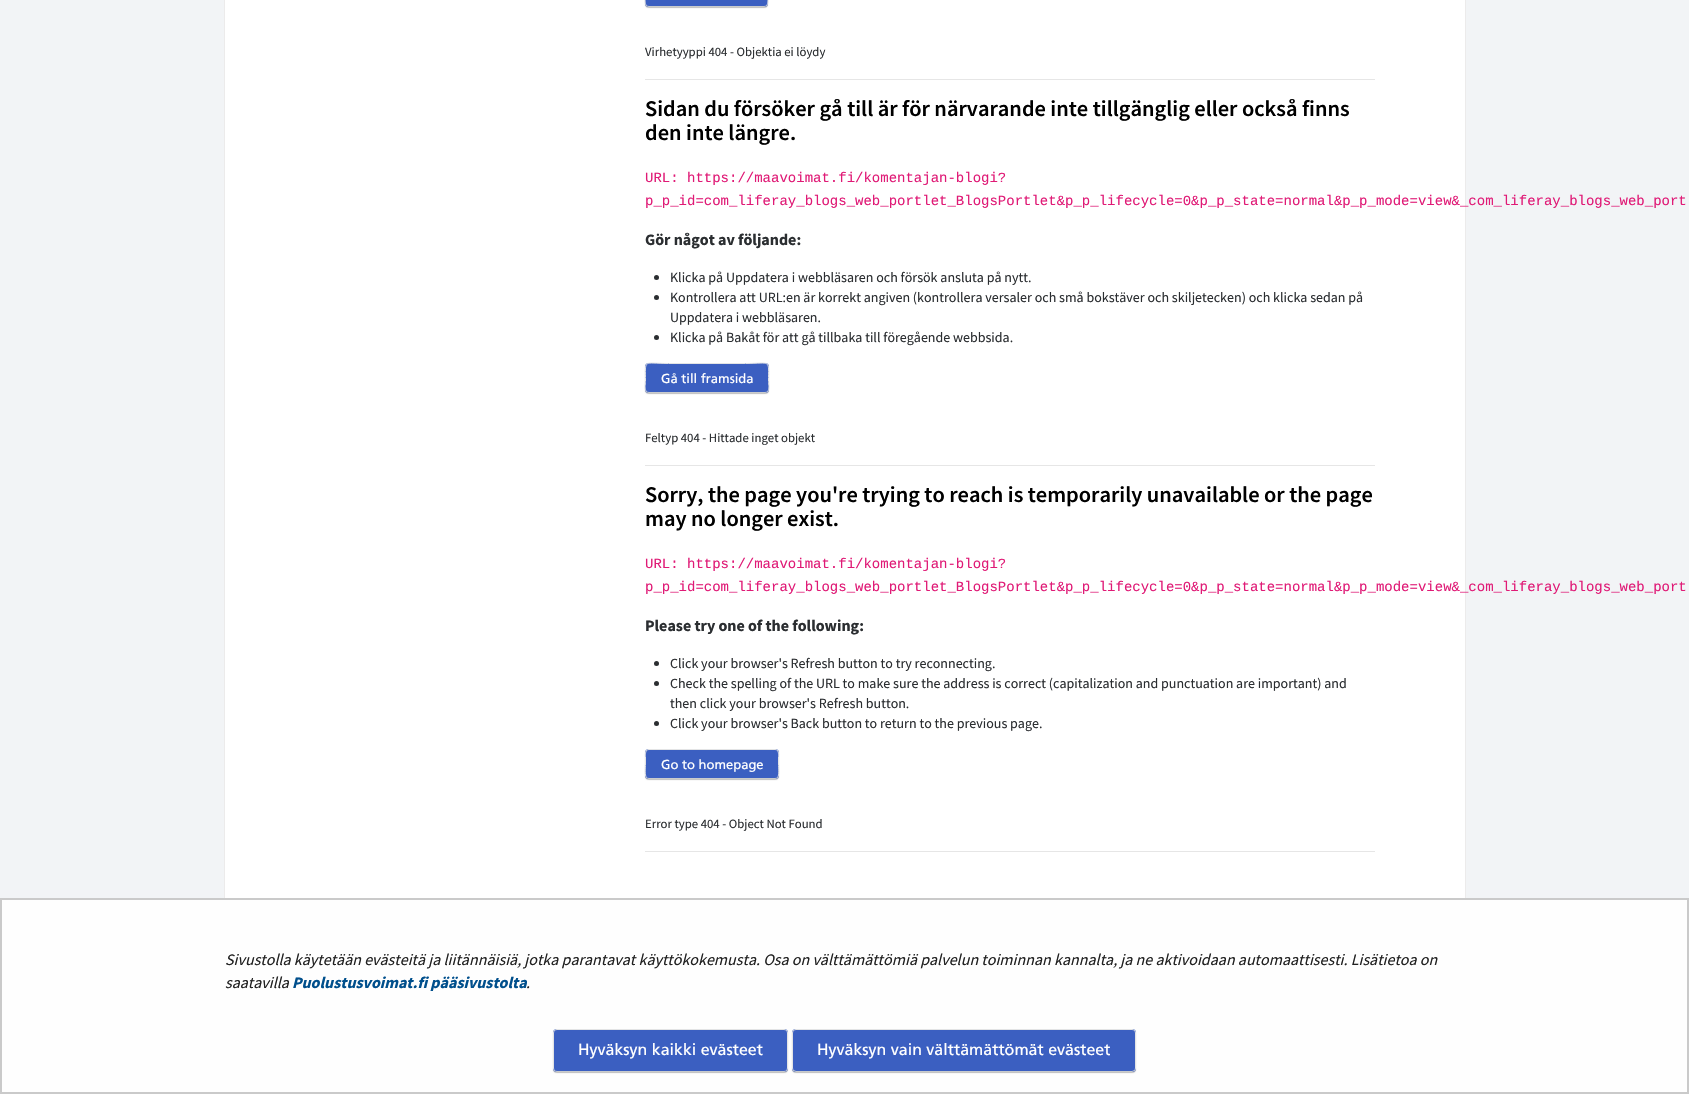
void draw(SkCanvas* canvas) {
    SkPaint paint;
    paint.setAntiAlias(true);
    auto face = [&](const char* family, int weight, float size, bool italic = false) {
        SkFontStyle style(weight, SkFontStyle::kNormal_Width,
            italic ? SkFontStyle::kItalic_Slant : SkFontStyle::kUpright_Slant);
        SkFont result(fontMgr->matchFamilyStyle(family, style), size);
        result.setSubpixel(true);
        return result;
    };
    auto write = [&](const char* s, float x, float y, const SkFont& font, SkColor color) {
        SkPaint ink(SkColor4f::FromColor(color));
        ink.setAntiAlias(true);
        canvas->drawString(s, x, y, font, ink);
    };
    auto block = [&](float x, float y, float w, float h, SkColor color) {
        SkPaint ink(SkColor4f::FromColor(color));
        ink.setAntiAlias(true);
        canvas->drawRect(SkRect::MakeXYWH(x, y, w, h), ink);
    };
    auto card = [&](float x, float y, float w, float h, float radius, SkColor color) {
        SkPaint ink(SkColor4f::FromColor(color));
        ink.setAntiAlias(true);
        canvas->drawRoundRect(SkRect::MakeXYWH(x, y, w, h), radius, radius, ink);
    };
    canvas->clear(SkColorSetRGB(242, 244, 246));
    block(225, 0, 1240, 898, SK_ColorWHITE);
    block(1465, 0, 1, 898, SkColorSetRGB(236, 235, 235));
    block(224, 0, 1, 898, SkColorSetRGB(236, 235, 235));
    paint.setColor(SkColorSetARGB(64, 0, 0, 0));
    paint.setMaskFilter(SkMaskFilter::MakeBlur(kNormal_SkBlurStyle, 0.5f));
    canvas->drawRoundRect(SkRect::MakeXYWH(645, -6, 123, 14), 4, 4, paint);
    paint.setMaskFilter(nullptr);
    card(645, -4, 123, 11, 4, SkColorSetRGB(59, 95, 193));
    paint.setStyle(SkPaint::kStroke_Style);
    paint.setStrokeWidth(1);
    paint.setColor(SkColorSetRGB(201, 203, 204));
    canvas->drawPath(SkPathBuilder().moveTo(766.5f, 5.5f).cubicTo(766, 6, 765, 6.5f, 764, 6.5f).lineTo(649, 6.5f).cubicTo(648, 6.5f, 647, 6, 646.5f, 5.5f).detach(), paint);
    paint.setColor(SkColorSetRGB(227, 228, 229));
    canvas->drawPath(SkPathBuilder().moveTo(646.5f, 5.5f).cubicTo(644, 3, 645.5f, -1.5f, 645.5f, -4.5f).cubicTo(645.5f, -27, 642.5f, -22.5f, 668, -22.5f).lineTo(745, -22.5f).cubicTo(770.5f, -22.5f, 767.5f, -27, 767.5f, -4.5f).cubicTo(767.5f, -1.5f, 769, 3, 766.5f, 5.5f).detach(), paint);
    auto kFont1 = face("Source Sans Pro", 400, 12.75f);
    write("Virhetyyppi 404 - Objektia ei löydy", 645, 56, kFont1, SkColorSetRGB(43, 46, 49));
    block(645, 79, 730, 1, SkColorSetRGB(230, 230, 230));
    auto kFont2 = face("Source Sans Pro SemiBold", 600, 22.4f);
    write("Sidan du försöker gå till är för närvarande inte tillgänglig eller också finns", 645, 116, kFont2, SK_ColorBLACK);
    write("den inte längre.", 645, 140, kFont2, SK_ColorBLACK);
    auto kFont3 = face("Liberation Mono", 400, 14);
    write("URL: https://maavoimat.fi/komentajan-blogi?", 645, 182, kFont3, SkColorSetRGB(224, 26, 118));
    write("p_p_id=com_liferay_blogs_web_portlet_BlogsPortlet&p_p_lifecycle=0&p_p_state=normal&p_p_mode=view&_com_liferay_blogs_web_port", 645, 205, kFont3, SkColorSetRGB(224, 26, 118));
    auto kFont4 = face("Source Sans Pro", 700, 16);
    write("Gör något av följande:", 645, 245, kFont4, SkColorSetRGB(43, 46, 49));
    paint.setStyle(SkPaint::kFill_Style);
    paint.setColor(SkColorSetRGB(43, 46, 49));
    canvas->drawCircle(656.5f, 277.5f, 2.5f, paint);
    auto kFont5 = face("Source Sans Pro", 400, 14);
    write("Klicka på Uppdatera i webbläsaren och försök ansluta på nytt.", 670, 282, kFont5, SkColorSetRGB(43, 46, 49));
    canvas->drawCircle(656.5f, 297.5f, 2.5f, paint);
    write("Kontrollera att URL:en är korrekt angiven (kontrollera versaler och små bokstäver och skiljetecken) och klicka sedan på", 670, 302, kFont5, SkColorSetRGB(43, 46, 49));
    write("Uppdatera i webbläsaren.", 670, 322, kFont5, SkColorSetRGB(43, 46, 49));
    canvas->drawCircle(656.5f, 337.5f, 2.5f, paint);
    write("Klicka på Bakåt för att gå tillbaka till föregående webbsida.", 670, 342, kFont5, SkColorSetRGB(43, 46, 49));
    paint.setColor(SkColorSetARGB(64, 0, 0, 0));
    paint.setMaskFilter(SkMaskFilter::MakeBlur(kNormal_SkBlurStyle, 0.5f));
    canvas->drawRoundRect(SkRect::MakeXYWH(645, 364, 124, 30), 4, 4, paint);
    paint.setMaskFilter(nullptr);
    card(645, 363, 124, 30, 4, SkColorSetRGB(59, 95, 193));
    paint.setStyle(SkPaint::kStroke_Style);
    paint.setColor(SkColorSetRGB(201, 203, 204));
    canvas->drawPath(SkPathBuilder().moveTo(767.5f, 391.5f).cubicTo(767, 392, 766, 392.5f, 765, 392.5f).lineTo(649, 392.5f).cubicTo(648, 392.5f, 647, 392, 646.5f, 391.5f).detach(), paint);
    paint.setColor(SkColorSetRGB(227, 228, 229));
    canvas->drawPath(SkPathBuilder().moveTo(646.5f, 391.5f).cubicTo(644, 389, 645.5f, 384.5f, 645.5f, 381.5f).cubicTo(645.5f, 358.5f, 642.5f, 363.5f, 668.5f, 363.5f).lineTo(745.5f, 363.5f).cubicTo(771.5f, 363.5f, 768.5f, 358.5f, 768.5f, 381.5f).cubicTo(768.5f, 384.5f, 770, 389, 767.5f, 391.5f).detach(), paint);
    auto kFont6 = face("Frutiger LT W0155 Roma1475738", 400, 13);
    write("Gå till framsida", 661, 383, kFont6, SK_ColorWHITE);
    write("Feltyp 404 - Hittade inget objekt", 645, 442, kFont1, SkColorSetRGB(43, 46, 49));
    block(645, 465, 730, 1, SkColorSetRGB(230, 230, 230));
    write("Sorry, the page you're trying to reach is temporarily unavailable or the page", 645, 502, kFont2, SK_ColorBLACK);
    write("may no longer exist.", 645, 526, kFont2, SK_ColorBLACK);
    write("URL: https://maavoimat.fi/komentajan-blogi?", 645, 568, kFont3, SkColorSetRGB(224, 26, 118));
    write("p_p_id=com_liferay_blogs_web_portlet_BlogsPortlet&p_p_lifecycle=0&p_p_state=normal&p_p_mode=view&_com_liferay_blogs_web_port", 645, 591, kFont3, SkColorSetRGB(224, 26, 118));
    write("Please try one of the following:", 645, 631, kFont4, SkColorSetRGB(43, 46, 49));
    paint.setStyle(SkPaint::kFill_Style);
    paint.setColor(SkColorSetRGB(43, 46, 49));
    canvas->drawCircle(656.5f, 663.5f, 2.5f, paint);
    write("Click your browser's Refresh button to try reconnecting.", 670, 668, kFont5, SkColorSetRGB(43, 46, 49));
    canvas->drawCircle(656.5f, 683.5f, 2.5f, paint);
    write("Check the spelling of the URL to make sure the address is correct (capitalization and punctuation are important) and", 670, 688, kFont5, SkColorSetRGB(43, 46, 49));
    write("then click your browser's Refresh button.", 670, 708, kFont5, SkColorSetRGB(43, 46, 49));
    canvas->drawCircle(656.5f, 723.5f, 2.5f, paint);
    write("Click your browser's Back button to return to the previous page.", 670, 728, kFont5, SkColorSetRGB(43, 46, 49));
    paint.setColor(SkColorSetARGB(64, 0, 0, 0));
    paint.setMaskFilter(SkMaskFilter::MakeBlur(kNormal_SkBlurStyle, 0.5f));
    canvas->drawRoundRect(SkRect::MakeXYWH(645, 750, 134, 30), 4, 4, paint);
    paint.setMaskFilter(nullptr);
    card(645, 749, 134, 30, 4, SkColorSetRGB(59, 95, 193));
    paint.setStyle(SkPaint::kStroke_Style);
    paint.setColor(SkColorSetRGB(201, 203, 204));
    canvas->drawPath(SkPathBuilder().moveTo(777.5f, 777.5f).cubicTo(777, 778, 776, 778.5f, 775, 778.5f).lineTo(649, 778.5f).cubicTo(648, 778.5f, 647, 778, 646.5f, 777.5f).detach(), paint);
    paint.setColor(SkColorSetRGB(227, 228, 229));
    canvas->drawPath(SkPathBuilder().moveTo(646.5f, 777.5f).cubicTo(644.5f, 775.5f, 645.5f, 767, 645.5f, 764).lineTo(645.5f, 756.5f).cubicTo(645.5f, 754, 645, 749.5f, 649, 749.5f).lineTo(775, 749.5f).cubicTo(779, 749.5f, 778.5f, 754, 778.5f, 756.5f).lineTo(778.5f, 764).cubicTo(778.5f, 767, 779.5f, 775.5f, 777.5f, 777.5f).detach(), paint);
    write("Go to homepage", 661, 769, kFont6, SK_ColorWHITE);
    write("Error type 404 - Object Not Found", 645, 828, kFont1, SkColorSetRGB(43, 46, 49));
    block(645, 851, 730, 1, SkColorSetRGB(230, 230, 230));
    paint.setStyle(SkPaint::kFill_Style);
    paint.setColor(SkColorSetRGB(254, 254, 254));
    canvas->drawRect(SkRect::MakeXYWH(1, 899, 1687, 194), paint);
    paint.setStyle(SkPaint::kStroke_Style);
    paint.setStrokeWidth(2);
    paint.setColor(SkColorSetRGB(202, 202, 202));
    canvas->drawRect(SkRect::MakeXYWH(1, 899, 1687, 194), paint);
    auto kFont7 = face("Source Sans Pro", 400, 16, true);
    write("Sivustolla käytetään evästeitä ja liitännäisiä, jotka parantavat käyttökokemusta. Osa on välttämättömiä palvelun toiminnan kannalta, ja ne aktivoidaan automaattisesti. Lisätietoa on", 225, 965, kFont7, SkColorSetRGB(33, 33, 33));
    write("saatavilla", 225, 988, kFont7, SkColorSetRGB(33, 33, 33));
    auto kFont8 = face("Source Sans Pro", 700, 16, true);
    write("Puolustusvoimat.fi pääsivustolta", 292, 988, kFont8, SkColorSetRGB(0, 79, 140));
    write(".", 526, 988, kFont7, SkColorSetRGB(33, 33, 33));
    paint.setStyle(SkPaint::kFill_Style);
    paint.setColor(SkColorSetARGB(64, 0, 0, 0));
    paint.setMaskFilter(SkMaskFilter::MakeBlur(kNormal_SkBlurStyle, 0.5f));
    canvas->drawRoundRect(SkRect::MakeXYWH(553, 1030, 235, 43), 4, 4, paint);
    paint.setMaskFilter(nullptr);
    card(553, 1029, 235, 43, 4, SkColorSetRGB(59, 95, 193));
    paint.setStyle(SkPaint::kStroke_Style);
    paint.setStrokeWidth(1);
    paint.setColor(SkColorSetRGB(201, 203, 204));
    canvas->drawPath(SkPathBuilder().moveTo(786.5f, 1070.5f).cubicTo(786, 1071, 785, 1071.5f, 784, 1071.5f).lineTo(557, 1071.5f).cubicTo(556, 1071.5f, 555, 1071, 554.5f, 1070.5f).detach(), paint);
    paint.setColor(SkColorSetRGB(227, 228, 229));
    canvas->drawPath(SkPathBuilder().moveTo(554.5f, 1070.5f).cubicTo(554, 1070, 553.5f, 1069, 553.5f, 1068).lineTo(553.5f, 1033).cubicTo(553.5f, 1032, 554, 1031, 554.5f, 1030.5f).cubicTo(555, 1030, 556, 1029.5f, 557, 1029.5f).lineTo(784, 1029.5f).cubicTo(785, 1029.5f, 786, 1030, 786.5f, 1030.5f).cubicTo(787, 1031, 787.5f, 1032, 787.5f, 1033).lineTo(787.5f, 1068).cubicTo(787.5f, 1069, 787, 1070, 786.5f, 1070.5f).detach(), paint);
    auto kFont9 = face("Frutiger LT W0155 Roma1475738", 400, 16);
    write("Hyväksyn kaikki evästeet", 578, 1055, kFont9, SK_ColorWHITE);
    paint.setStyle(SkPaint::kFill_Style);
    paint.setColor(SkColorSetARGB(64, 0, 0, 0));
    paint.setMaskFilter(SkMaskFilter::MakeBlur(kNormal_SkBlurStyle, 0.5f));
    canvas->drawRoundRect(SkRect::MakeXYWH(792, 1030, 344, 43), 4, 4, paint);
    paint.setMaskFilter(nullptr);
    card(792, 1029, 344, 43, 4, SkColorSetRGB(59, 95, 193));
    paint.setStyle(SkPaint::kStroke_Style);
    paint.setColor(SkColorSetRGB(201, 203, 204));
    canvas->drawPath(SkPathBuilder().moveTo(1134.5f, 1070.5f).lineTo(1132, 1071.5f).lineTo(796, 1071.5f).lineTo(793.5f, 1070.5f).detach(), paint);
    paint.setColor(SkColorSetRGB(227, 228, 229));
    canvas->drawPath(SkPathBuilder().moveTo(793.5f, 1070.5f).cubicTo(793, 1070, 792.5f, 1069, 792.5f, 1068).lineTo(792.5f, 1033).cubicTo(792.5f, 1032, 793, 1031, 793.5f, 1030.5f).cubicTo(794, 1030, 795, 1029.5f, 796, 1029.5f).lineTo(1132, 1029.5f).cubicTo(1133, 1029.5f, 1134, 1030, 1134.5f, 1030.5f).cubicTo(1135, 1031, 1135.5f, 1032, 1135.5f, 1033).lineTo(1135.5f, 1068).cubicTo(1135.5f, 1069, 1135, 1070, 1134.5f, 1070.5f).detach(), paint);
    write("Hyväksyn vain välttämättömät evästeet", 817, 1055, kFont9, SK_ColorWHITE);
}
